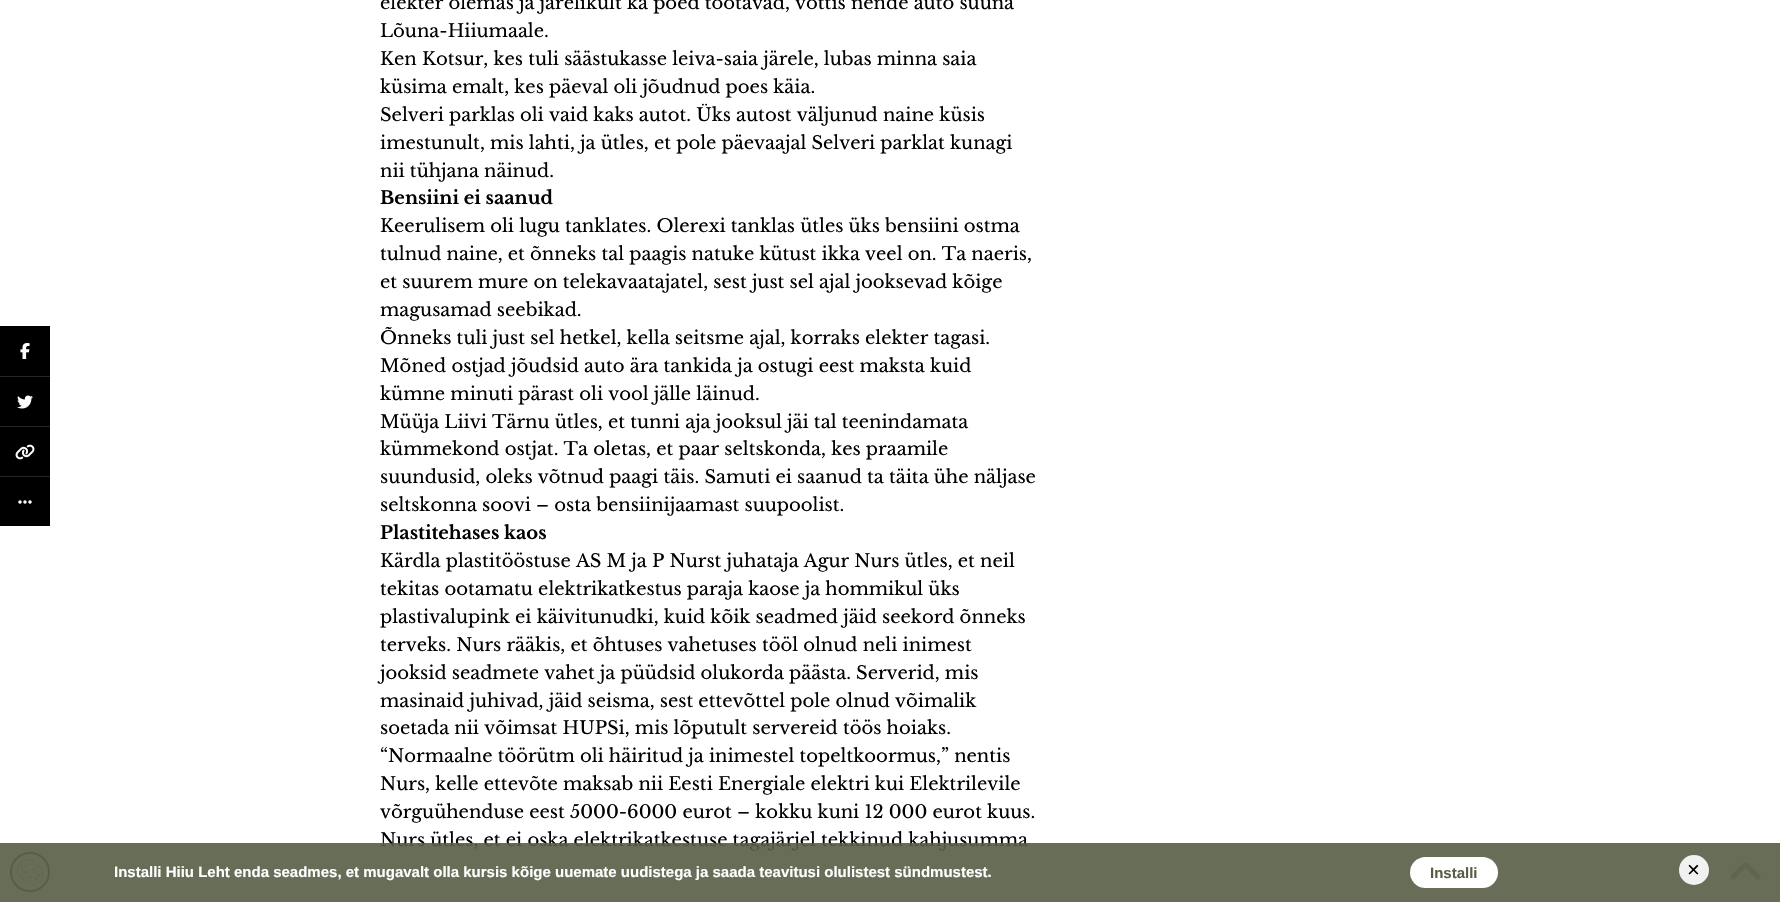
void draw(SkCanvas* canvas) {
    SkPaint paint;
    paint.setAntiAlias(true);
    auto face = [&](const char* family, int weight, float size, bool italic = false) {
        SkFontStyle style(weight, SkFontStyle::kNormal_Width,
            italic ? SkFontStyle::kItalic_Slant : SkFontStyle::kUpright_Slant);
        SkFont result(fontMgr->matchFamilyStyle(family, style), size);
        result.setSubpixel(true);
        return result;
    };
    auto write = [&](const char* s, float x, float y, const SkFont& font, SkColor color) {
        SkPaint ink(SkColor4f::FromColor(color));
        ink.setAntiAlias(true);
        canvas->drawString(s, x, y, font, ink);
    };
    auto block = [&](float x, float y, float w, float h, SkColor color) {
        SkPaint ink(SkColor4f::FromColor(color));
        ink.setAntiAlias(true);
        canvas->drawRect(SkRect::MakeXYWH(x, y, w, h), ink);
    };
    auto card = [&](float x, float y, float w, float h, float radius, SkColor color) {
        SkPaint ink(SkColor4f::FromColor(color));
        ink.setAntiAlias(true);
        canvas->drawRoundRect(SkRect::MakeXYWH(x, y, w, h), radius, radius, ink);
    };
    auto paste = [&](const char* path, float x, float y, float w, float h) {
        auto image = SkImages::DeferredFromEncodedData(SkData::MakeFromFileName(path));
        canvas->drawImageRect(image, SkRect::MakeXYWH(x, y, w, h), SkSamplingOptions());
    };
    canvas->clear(SK_ColorWHITE);
    block(0, 326, 50, 50, SK_ColorBLACK);
    paste("pic1.png", 20, 343, 10, 16);
    block(0, 377, 50, 49, SK_ColorBLACK);
    block(0, 376, 50, 1, SkColorSetRGB(38, 38, 38));
    paste("pic2.png", 17, 395, 16, 14);
    block(0, 427, 50, 49, SK_ColorBLACK);
    block(0, 426, 50, 1, SkColorSetRGB(38, 38, 38));
    paste("pic3.png", 15, 444, 20, 16);
    block(0, 477, 50, 49, SK_ColorBLACK);
    block(0, 476, 50, 1, SkColorSetRGB(38, 38, 38));
    paste("pic4.png", 18, 500, 14, 4);
    auto kFont1 = face("Libre Baskerville", 400, 18);
    write("elekter olemas ja järelikult ka poed töötavad, võttis nende auto suuna", 380, 9, kFont1, SK_ColorBLACK);
    write("Lõuna-Hiiumaale.", 380, 37, kFont1, SK_ColorBLACK);
    write("Ken Kotsur, kes tuli säästukasse leiva-saia järele, lubas minna saia", 380, 65, kFont1, SK_ColorBLACK);
    write("küsima emalt, kes päeval oli jõudnud poes käia.", 380, 93, kFont1, SK_ColorBLACK);
    write("Selveri parklas oli vaid kaks autot. Üks autost väljunud naine küsis", 380, 121, kFont1, SK_ColorBLACK);
    write("imestunult, mis lahti, ja ütles, et pole päevaajal Selveri parklat kunagi", 380, 149, kFont1, SK_ColorBLACK);
    write("nii tühjana näinud.", 380, 177, kFont1, SK_ColorBLACK);
    auto kFont2 = face("Libre Baskerville", 700, 18);
    write("Bensiini ei saanud", 380, 204, kFont2, SK_ColorBLACK);
    write("Keerulisem oli lugu tanklates. Olerexi tanklas ütles üks bensiini ostma", 380, 232, kFont1, SK_ColorBLACK);
    write("tulnud naine, et õnneks tal paagis natuke kütust ikka veel on. Ta naeris,", 380, 260, kFont1, SK_ColorBLACK);
    write("et suurem mure on telekavaatajatel, sest just sel ajal jooksevad kõige", 380, 288, kFont1, SK_ColorBLACK);
    write("magusamad seebikad.", 380, 316, kFont1, SK_ColorBLACK);
    write("Õnneks tuli just sel hetkel, kella seitsme ajal, korraks elekter tagasi.", 380, 344, kFont1, SK_ColorBLACK);
    write("Mõned ostjad jõudsid auto ära tankida ja ostugi eest maksta kuid", 380, 372, kFont1, SK_ColorBLACK);
    write("kümne minuti pärast oli vool jälle läinud.", 380, 400, kFont1, SK_ColorBLACK);
    write("Müüja Liivi Tärnu ütles, et tunni aja jooksul jäi tal teenindamata", 380, 428, kFont1, SK_ColorBLACK);
    write("kümmekond ostjat. Ta oletas, et paar seltskonda, kes praamile", 380, 455, kFont1, SK_ColorBLACK);
    write("suundusid, oleks võtnud paagi täis. Samuti ei saanud ta täita ühe näljase", 380, 483, kFont1, SK_ColorBLACK);
    write("seltskonna soovi – osta bensiinijaamast suupoolist.", 380, 511, kFont1, SK_ColorBLACK);
    write("Plastitehases kaos", 380, 539, kFont2, SK_ColorBLACK);
    write("Kärdla plastitööstuse AS M ja P Nurst juhataja Agur Nurs ütles, et neil", 380, 567, kFont1, SK_ColorBLACK);
    write("tekitas ootamatu elektrikatkestus paraja kaose ja hommikul üks", 380, 595, kFont1, SK_ColorBLACK);
    write("plastivalupink ei käivitunudki, kuid kõik seadmed jäid seekord õnneks", 380, 623, kFont1, SK_ColorBLACK);
    write("terveks. Nurs rääkis, et õhtuses vahetuses tööl olnud neli inimest", 380, 651, kFont1, SK_ColorBLACK);
    write("jooksid seadmete vahet ja püüdsid olukorda päästa. Serverid, mis", 380, 679, kFont1, SK_ColorBLACK);
    write("masinaid juhivad, jäid seisma, sest ettevõttel pole olnud võimalik", 380, 707, kFont1, SK_ColorBLACK);
    write("soetada nii võimsat HUPSi, mis lõputult servereid töös hoiaks.", 380, 734, kFont1, SK_ColorBLACK);
    write("“Normaalne töörütm oli häiritud ja inimestel topeltkoormus,” nentis", 380, 762, kFont1, SK_ColorBLACK);
    write("Nurs, kelle ettevõte maksab nii Eesti Energiale elektri kui Elektrilevile", 380, 790, kFont1, SK_ColorBLACK);
    write("võrguühenduse eest 5000-6000 eurot – kokku kuni 12 000 eurot kuus.", 380, 818, kFont1, SK_ColorBLACK);
    write("Nurs ütles, et ei oska elektrikatkestuse tagajärjel tekkinud kahjusumma", 380, 846, kFont1, SK_ColorBLACK);
    paste("pic5.png", 1730, 862, 31, 18);
    paint.setStyle(SkPaint::kStroke_Style);
    paint.setStrokeWidth(2);
    paint.setColor(SkColorSetRGB(95, 104, 90));
    canvas->drawCircle(30, 872, 19, paint);
    paste("pic6.png", 17, 859, 26, 26);
    block(0, 843, 1780, 59, SkColorSetARGB(230, 87, 93, 69));
    auto kFont3 = face("Liberation Sans", 700, 15);
    write("Installi Hiiu Leht enda seadmes, et mugavalt olla kursis kõige uuemate uudistega ja saada teavitusi olulistest sündmustest.", 114, 877, kFont3, SK_ColorWHITE);
    card(1410, 857, 88, 31, 15.5f, SK_ColorWHITE);
    write("Installi", 1430, 878, kFont3, SkColorSetRGB(87, 93, 69));
    paint.setStyle(SkPaint::kFill_Style);
    paint.setColor(SkColorSetRGB(241, 241, 241));
    canvas->drawCircle(1694, 870, 15, paint);
    auto kFont4 = face("Liberation Sans", 400, 22);
    write("×", 1687, 877, kFont4, SK_ColorBLACK);
}
